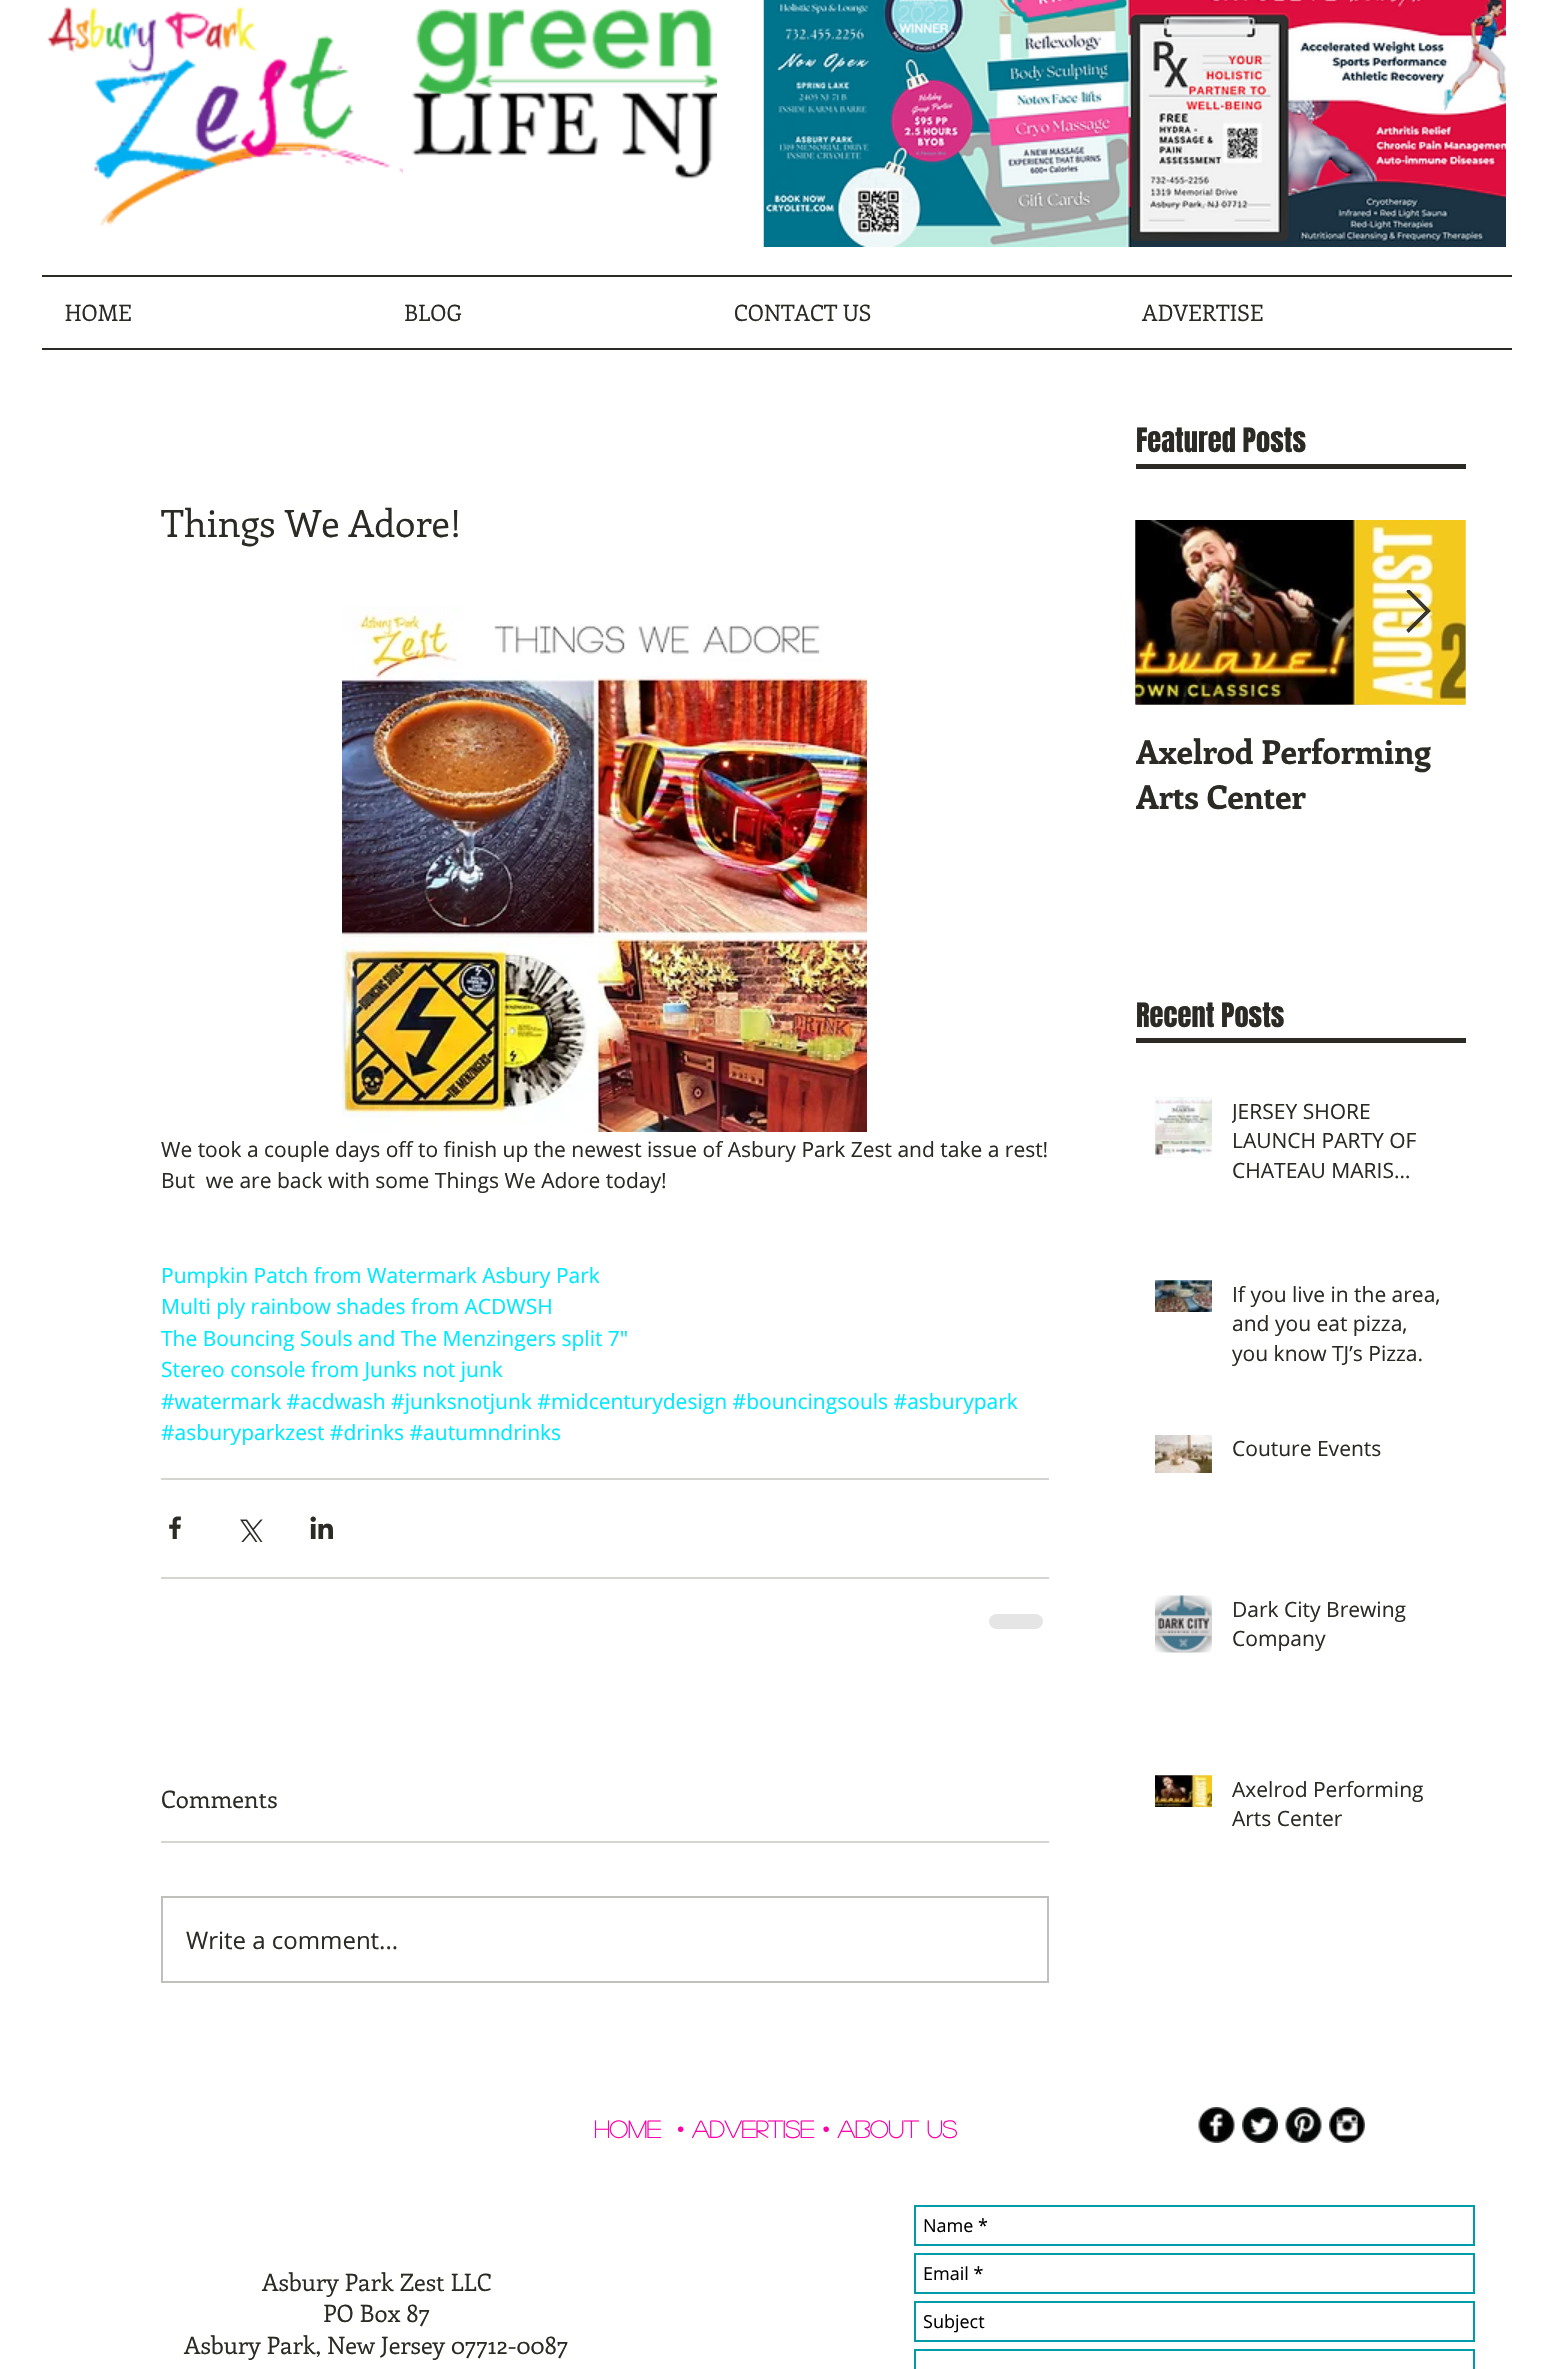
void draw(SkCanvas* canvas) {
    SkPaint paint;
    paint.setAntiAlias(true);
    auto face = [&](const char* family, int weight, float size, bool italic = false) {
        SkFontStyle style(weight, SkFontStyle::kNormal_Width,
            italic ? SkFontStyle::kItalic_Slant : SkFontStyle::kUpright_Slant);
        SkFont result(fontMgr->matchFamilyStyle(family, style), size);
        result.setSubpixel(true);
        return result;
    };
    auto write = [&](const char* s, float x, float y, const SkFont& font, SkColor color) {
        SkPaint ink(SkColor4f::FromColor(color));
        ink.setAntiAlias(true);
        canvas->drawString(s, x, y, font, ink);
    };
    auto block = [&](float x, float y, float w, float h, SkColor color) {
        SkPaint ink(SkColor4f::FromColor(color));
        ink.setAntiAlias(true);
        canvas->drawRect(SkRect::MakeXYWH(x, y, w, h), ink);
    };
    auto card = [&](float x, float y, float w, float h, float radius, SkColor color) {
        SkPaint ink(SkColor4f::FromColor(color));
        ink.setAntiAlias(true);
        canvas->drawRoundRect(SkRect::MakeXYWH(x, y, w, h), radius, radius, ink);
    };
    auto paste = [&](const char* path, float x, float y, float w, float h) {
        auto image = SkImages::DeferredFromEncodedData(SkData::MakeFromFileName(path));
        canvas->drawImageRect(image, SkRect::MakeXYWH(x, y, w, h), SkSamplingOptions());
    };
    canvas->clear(SK_ColorWHITE);
    paste("pic1.png", 47, 6, 356, 220);
    paste("pic2.png", 411, 9, 306, 170);
    paste("pic3.png", 763, 0, 743, 247);
    block(42, 275, 1470, 2, SkColorSetRGB(44, 42, 37));
    block(42, 348, 1470, 2, SkColorSetRGB(44, 42, 37));
    auto kFont1 = face("Enriqueta", 400, 22.5f);
    write("HOME", 65, 321, kFont1, SkColorSetRGB(44, 42, 37));
    write("BLOG", 404, 321, kFont1, SkColorSetRGB(44, 42, 37));
    write("CONTACT US", 734, 321, kFont1, SkColorSetRGB(44, 42, 37));
    write("ADVERTISE", 1142, 321, kFont1, SkColorSetRGB(44, 42, 37));
    auto kFont2 = face("Anton", 400, 28.5f);
    write("Featured Posts", 1136, 452, kFont2, SkColorSetRGB(44, 42, 37));
    block(1136, 464, 330, 5, SkColorSetRGB(44, 42, 37));
    auto kFont3 = face("Enriqueta", 400, 37.5f);
    write("Things We Adore!", 161, 537, kFont3, SkColorSetRGB(44, 42, 37));
    paste("pic4.png", 342, 607, 525, 525);
    auto kFont4 = face("Open Sans", 400, 21);
    write("We took a couple days off to finish up the newest issue of Asbury Park Zest and take a rest!", 161, 1157, kFont4, SkColorSetRGB(44, 42, 37));
    write("But  we are back with some Things We Adore today!", 161, 1188, kFont4, SkColorSetRGB(44, 42, 37));
    write("Pumpkin Patch from Watermark Asbury Park", 161, 1283, kFont4, SkColorSetRGB(0, 233, 255));
    write("Multi ply rainbow shades from ACDWSH", 161, 1314, kFont4, SkColorSetRGB(0, 233, 255));
    write("The Bouncing Souls and The Menzingers split 7\"", 161, 1346, kFont4, SkColorSetRGB(0, 233, 255));
    write("Stereo console from Junks not junk", 161, 1377, kFont4, SkColorSetRGB(0, 233, 255));
    write("#watermark #acdwash #junksnotjunk #midcenturydesign #bouncingsouls #asburypark", 161, 1409, kFont4, SkColorSetRGB(0, 233, 255));
    write("#asburyparkzest #drinks #autumndrinks", 161, 1440, kFont4, SkColorSetRGB(0, 233, 255));
    block(161, 1478, 888, 2, SkColorSetRGB(213, 212, 211));
    paste("pic5.png", 169, 1516, 12, 23);
    paste("pic6.png", 240, 1519, 23, 23);
    paste("pic7.png", 310, 1516, 23, 23);
    block(161, 1577, 888, 2, SkColorSetRGB(213, 212, 211));
    card(989, 1614, 54, 15, 7.5f, SkColorSetRGB(230, 229, 229));
    auto kFont5 = face("Enriqueta", 400, 24);
    write("Comments", 161, 1808, kFont5, SkColorSetRGB(44, 42, 37));
    block(161, 1841, 888, 2, SkColorSetRGB(213, 212, 211));
    paint.setStyle(SkPaint::kStroke_Style);
    paint.setStrokeWidth(2);
    paint.setColor(SkColorSetRGB(192, 191, 190));
    canvas->drawRect(SkRect::MakeXYWH(162, 1897, 886, 85), paint);
    auto kFont6 = face("Open Sans", 400, 24);
    write("Write a comment...", 186, 1949, kFont6, SkColorSetRGB(44, 42, 37));
    paste("pic8.png", 1135, 520, 331, 185);
    paste("pic9.png", 1135, 520, 331, 185);
    paint.setStyle(SkPaint::kFill_Style);
    paint.setColor(SkColorSetARGB(230, 44, 42, 37));
    canvas->drawPath(SkPathBuilder().moveTo(1407, 591).lineTo(1409, 590).lineTo(1430, 611).lineTo(1409, 632).lineTo(1407, 630).lineTo(1426, 611).close().detach(), paint);
    canvas->save();
    canvas->clipRect(SkRect::MakeXYWH(1404, 590, 27, 45));
    paint.setStyle(SkPaint::kStroke_Style);
    paint.setStrokeWidth(1.2f);
    canvas->drawPath(SkPathBuilder().moveTo(1407, 591.5f).lineTo(1408.5f, 589.5f).lineTo(1430, 611).lineTo(1408.5f, 632).lineTo(1407, 630).lineTo(1426.5f, 611).close().detach(), paint);
    canvas->restore();
    canvas->save();
    canvas->clipRect(SkRect::MakeXYWH(1136, 729, 330, 90));
    auto kFont7 = face("Enriqueta", 700, 33);
    write("Axelrod Performing", 1136, 764, kFont7, SkColorSetRGB(44, 42, 37));
    write("Arts Center", 1136, 809, kFont7, SkColorSetRGB(44, 42, 37));
    canvas->restore();
    write("Recent Posts", 1136, 1027, kFont2, SkColorSetRGB(44, 42, 37));
    block(1136, 1038, 330, 5, SkColorSetRGB(44, 42, 37));
    paste("pic10.png", 1155, 1097, 57, 61);
    paste("pic11.png", 1155, 1097, 57, 61);
    canvas->save();
    canvas->clipRect(SkRect::MakeXYWH(1232, 1097, 216, 88));
    write("JERSEY SHORE", 1232, 1119, kFont4, SkColorSetRGB(44, 42, 37));
    canvas->restore();
    write("LAUNCH PARTY OF", 1232, 1148, kFont4, SkColorSetRGB(44, 42, 37));
    write("CHATEAU MARIS…", 1232, 1178, kFont4, SkColorSetRGB(44, 42, 37));
    paste("pic12.png", 1155, 1280, 57, 1);
    paste("pic13.png", 1155, 1280, 57, 32);
    write("If you live in the area,", 1232, 1302, kFont4, SkColorSetRGB(44, 42, 37));
    write("and you eat pizza,", 1232, 1331, kFont4, SkColorSetRGB(44, 42, 37));
    canvas->save();
    canvas->clipRect(SkRect::MakeXYWH(1232, 1280, 216, 88));
    write("you know TJ’s Pizza.", 1232, 1361, kFont4, SkColorSetRGB(44, 42, 37));
    canvas->restore();
    paste("pic14.png", 1155, 1435, 57, 38);
    write("Couture Events", 1232, 1456, kFont4, SkColorSetRGB(44, 42, 37));
    paste("pic15.png", 1155, 1595, 57, 58);
    paste("pic16.png", 1155, 1595, 57, 58);
    write("Dark City Brewing", 1232, 1617, kFont4, SkColorSetRGB(44, 42, 37));
    write("Company", 1232, 1646, kFont4, SkColorSetRGB(44, 42, 37));
    paste("pic17.png", 1155, 1775, 57, 1);
    paste("pic18.png", 1155, 1775, 57, 32);
    write("Axelrod Performing", 1232, 1797, kFont4, SkColorSetRGB(44, 42, 37));
    write("Arts Center", 1232, 1826, kFont4, SkColorSetRGB(44, 42, 37));
    auto kFont8 = face("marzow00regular", 700, 24);
    write("Home", 594, 2138, kFont8, SkColorSetRGB(255, 0, 170));
    write("• Advertise • About Us", 677, 2138, kFont8, SkColorSetRGB(255, 0, 170));
    paste("pic19.png", 1198, 2107, 37, 36);
    paste("pic20.png", 1242, 2107, 36, 36);
    paste("pic21.png", 1285, 2107, 37, 36);
    paste("pic22.png", 1329, 2107, 36, 36);
    write("Asbury Park Zest LLC", 262, 2291, kFont5, SkColorSetRGB(44, 42, 37));
    write("PO Box 87", 323, 2322, kFont5, SkColorSetRGB(44, 42, 37));
    write("Asbury Park, New Jersey 07712-0087", 184, 2354, kFont5, SkColorSetRGB(44, 42, 37));
    paint.setStrokeWidth(2);
    paint.setColor(SkColorSetRGB(0, 155, 169));
    canvas->drawRect(SkRect::MakeXYWH(915, 2206, 559, 39), paint);
    auto kFont9 = face("Open Sans", 400, 18);
    write("Name *", 923, 2232, kFont9, SK_ColorBLACK);
    canvas->drawRect(SkRect::MakeXYWH(915, 2254, 559, 39), paint);
    write("Email *", 923, 2280, kFont9, SK_ColorBLACK);
    canvas->drawRect(SkRect::MakeXYWH(915, 2302, 559, 39), paint);
    write("Subject", 923, 2328, kFont9, SK_ColorBLACK);
    canvas->drawRect(SkRect::MakeXYWH(915, 2350, 559, 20), paint);
}
